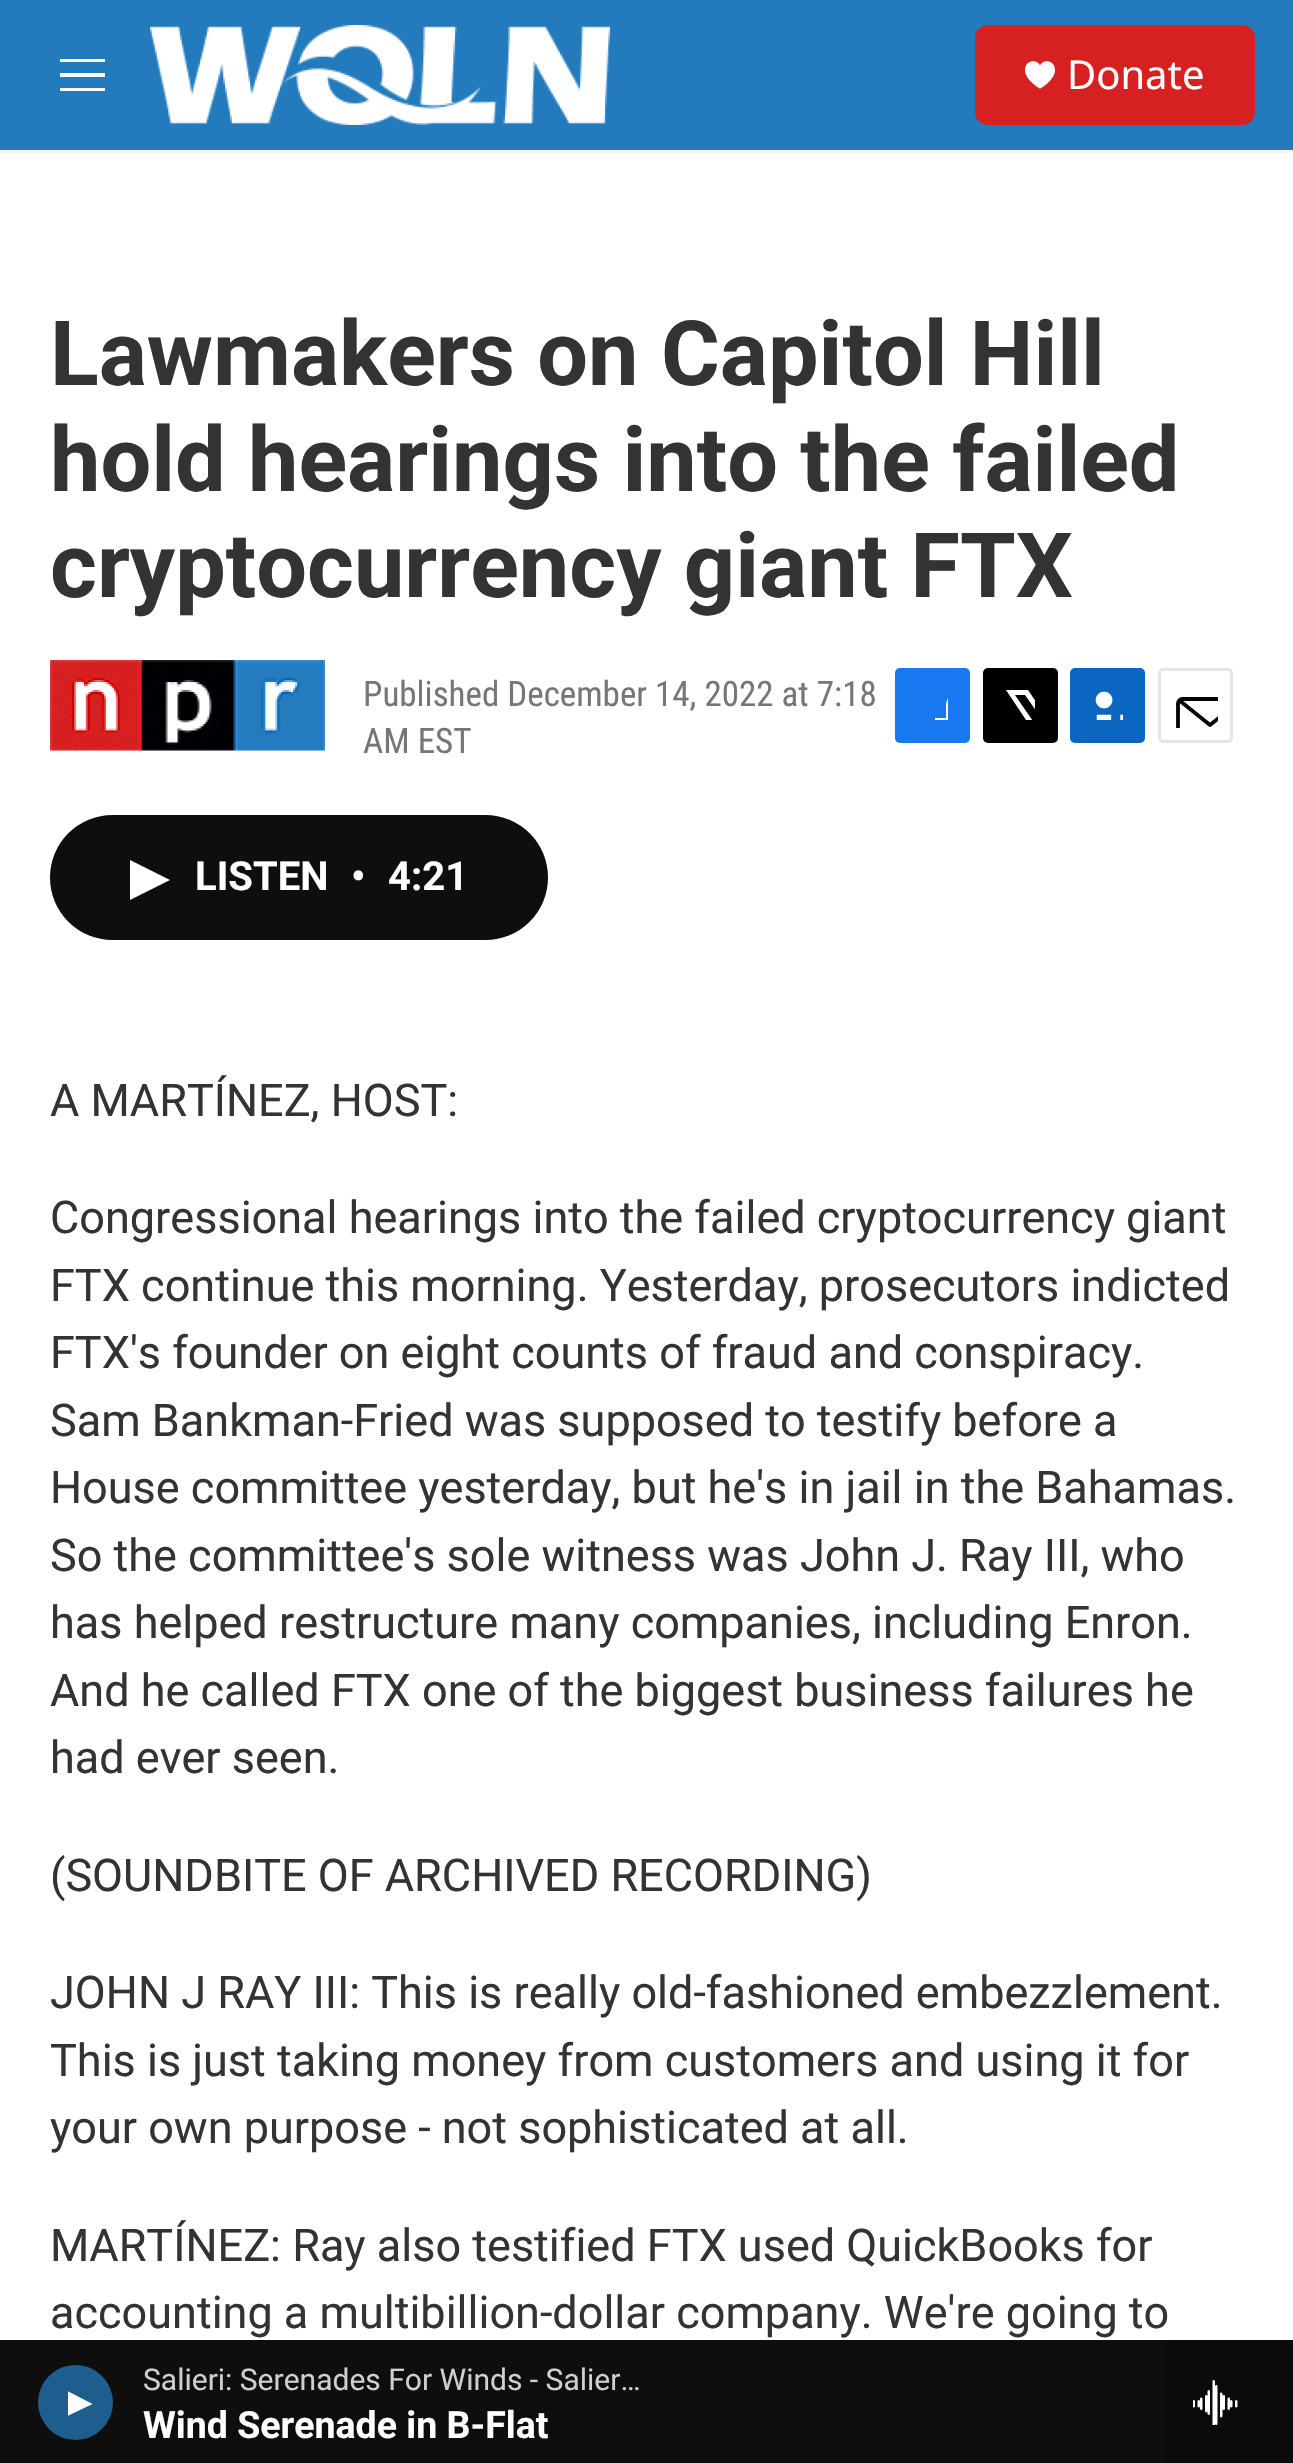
void draw(SkCanvas* canvas) {
    SkPaint paint;
    paint.setAntiAlias(true);
    auto face = [&](const char* family, int weight, float size, bool italic = false) {
        SkFontStyle style(weight, SkFontStyle::kNormal_Width,
            italic ? SkFontStyle::kItalic_Slant : SkFontStyle::kUpright_Slant);
        SkFont result(fontMgr->matchFamilyStyle(family, style), size);
        result.setSubpixel(true);
        return result;
    };
    auto write = [&](const char* s, float x, float y, const SkFont& font, SkColor color) {
        SkPaint ink(SkColor4f::FromColor(color));
        ink.setAntiAlias(true);
        canvas->drawString(s, x, y, font, ink);
    };
    auto block = [&](float x, float y, float w, float h, SkColor color) {
        SkPaint ink(SkColor4f::FromColor(color));
        ink.setAntiAlias(true);
        canvas->drawRect(SkRect::MakeXYWH(x, y, w, h), ink);
    };
    auto card = [&](float x, float y, float w, float h, float radius, SkColor color) {
        SkPaint ink(SkColor4f::FromColor(color));
        ink.setAntiAlias(true);
        canvas->drawRoundRect(SkRect::MakeXYWH(x, y, w, h), radius, radius, ink);
    };
    auto paste = [&](const char* path, float x, float y, float w, float h) {
        auto image = SkImages::DeferredFromEncodedData(SkData::MakeFromFileName(path));
        canvas->drawImageRect(image, SkRect::MakeXYWH(x, y, w, h), SkSamplingOptions());
    };
    canvas->clear(SK_ColorWHITE);
    block(0, 0, 1293, 150, SkColorSetRGB(35, 123, 189));
    block(0, 150, 1293, 3, SkColorSetRGB(245, 245, 245));
    paint.setColor(SK_ColorWHITE);
    canvas->drawPath(SkPathBuilder(SkPathFillType::kEvenOdd).moveTo(60, 77).lineTo(60, 73).lineTo(105, 73).lineTo(105, 77).close().moveTo(60, 62).lineTo(60, 59).lineTo(105, 59).lineTo(105, 62).close().moveTo(60, 91).lineTo(60, 88).lineTo(105, 88).lineTo(105, 91).close().detach(), paint);
    paste("pic1.png", 150, 25, 460, 100);
    card(975, 25, 280, 100, 13, SkColorSetRGB(214, 32, 33));
    paste("pic2.png", 1025, 61, 30, 28);
    auto kFont1 = face("Noto Sans", 400, 40);
    write("Donate", 1067, 89, kFont1, SK_ColorWHITE);
    block(0, 2340, 1163, 123, SkColorSetRGB(14, 14, 14));
    paint.setColor(SkColorSetRGB(30, 94, 142));
    canvas->drawCircle(75.5f, 2402.5f, 37.5f, paint);
    canvas->save();
    canvas->clipRect(SkRect::MakeXYWH(68, 2390, 25, 28));
    paint.setColor(SK_ColorWHITE);
    canvas->drawPath(SkPathBuilder().moveTo(67.5f, 2391).lineTo(92.5f, 2404).lineTo(67.5f, 2416).close().detach(), paint);
    canvas->restore();
    auto kFont2 = face("Roboto", 400, 30);
    write("Salieri: Serenades For Winds - Salier…", 143, 2390, kFont2, SkColorSetRGB(207, 207, 207));
    auto kFont3 = face("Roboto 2", 700, 37.5f);
    write("Wind Serenade in B-Flat", 143, 2438, kFont3, SK_ColorWHITE);
    block(1163, 2340, 130, 123, SkColorSetRGB(11, 11, 11));
    paste("pic3.png", 1193, 2380, 45, 45);
    auto kFont4 = face("Roboto", 700, 90);
    write("Lawmakers on Capitol Hill", 50, 385, kFont4, SkColorSetRGB(51, 51, 51));
    write("hold hearings into the failed", 50, 491, kFont4, SkColorSetRGB(51, 51, 51));
    write("cryptocurrency giant FTX", 50, 597, kFont4, SkColorSetRGB(51, 51, 51));
    paste("pic4.png", 50, 660, 275, 93);
    auto kFont5 = face("Roboto Condensed", 400, 35);
    write("Published December 14, 2022 at 7:18", 363, 706, kFont5, SkColorSetRGB(118, 118, 118));
    write("AM EST", 363, 753, kFont5, SkColorSetRGB(118, 118, 118));
    card(895, 668, 75, 75, 5, SkColorSetRGB(23, 120, 242));
    canvas->save();
    canvas->clipRect(SkRect::MakeXYWH(918, 690, 30, 30));
    canvas->drawPath(SkPathBuilder().moveTo(959, 743).lineTo(946, 743).lineTo(946, 730).lineTo(935, 730).lineTo(935, 718).lineTo(946, 718).lineTo(946, 704).cubicTo(948, 692, 959, 690, 970, 692).lineTo(970, 703).cubicTo(956, 703, 959, 707, 959, 718).lineTo(970, 718).lineTo(970, 724).lineTo(969, 730).lineTo(959, 730).close().detach(), paint);
    canvas->restore();
    card(983, 668, 75, 75, 5, SK_ColorBLACK);
    canvas->save();
    canvas->clipRect(SkRect::MakeXYWH(1005, 690, 30, 30));
    canvas->drawPath(SkPathBuilder().moveTo(1049, 722).lineTo(1058, 735).cubicTo(1058, 737, 1058, 739, 1057, 741).lineTo(1025, 695).lineTo(1015, 695).lineTo(1048, 743).lineTo(1042, 743).lineTo(1037, 736).lineTo(1031, 743).lineTo(1025, 743).lineTo(1034, 732).lineTo(1006, 690).lineTo(1028, 690).lineTo(1047, 718).lineTo(1058, 705).lineTo(1058, 712).close().detach(), paint);
    canvas->restore();
    card(1070, 668, 75, 75, 5, SkColorSetRGB(10, 102, 193));
    paste("pic5.png", 1095, 691, 28, 29);
    paint.setStyle(SkPaint::kStroke_Style);
    paint.setStrokeWidth(3);
    paint.setColor(SkColorSetRGB(230, 230, 230));
    canvas->drawRoundRect(SkRect::MakeXYWH(1159.5f, 669.5f, 72, 72), 3.5f, 3.5f, paint);
    canvas->save();
    canvas->clipRect(SkRect::MakeXYWH(1173, 683, 45, 45));
    paint.setStrokeWidth(3.8f);
    paint.setStrokeCap(SkPaint::kRound_Cap);
    paint.setStrokeJoin(SkPaint::kRound_Join);
    paint.setColor(SK_ColorBLACK);
    canvas->drawPath(SkPathBuilder().moveTo(1242, 737.5f).cubicTo(1242, 740, 1240, 742, 1237.5f, 742).lineTo(1182.5f, 742).cubicTo(1180, 742, 1178, 740, 1178, 737.5f).lineTo(1178, 703.5f).cubicTo(1178, 701, 1180, 699, 1182.5f, 699).lineTo(1237.5f, 699).cubicTo(1240, 699, 1242, 701, 1242, 703.5f).close().moveTo(1240.5f, 700.5f).lineTo(1210, 725).lineTo(1179.5f, 700.5f).detach(), paint);
    canvas->restore();
    card(50, 815, 498, 125, 62.5f, SkColorSetRGB(14, 14, 14));
    paint.setStyle(SkPaint::kFill_Style);
    paint.setColor(SK_ColorWHITE);
    canvas->drawPath(SkPathBuilder().moveTo(130, 860).lineTo(170, 880).lineTo(130, 900).close().detach(), paint);
    auto kFont6 = face("Roboto 2", 700, 40);
    write("LISTEN", 195, 890, kFont6, SK_ColorWHITE);
    write("•", 351, 890, kFont6, SK_ColorWHITE);
    write("4:21", 388, 890, kFont6, SK_ColorWHITE);
    auto kFont7 = face("Roboto", 400, 45);
    write("A MARTÍNEZ, HOST:", 50, 1116, kFont7, SkColorSetRGB(51, 51, 51));
    write("Congressional hearings into the failed cryptocurrency giant", 50, 1233, kFont7, SkColorSetRGB(51, 51, 51));
    write("FTX continue this morning. Yesterday, prosecutors indicted", 50, 1301, kFont7, SkColorSetRGB(51, 51, 51));
    write("FTX's founder on eight counts of fraud and conspiracy.", 50, 1368, kFont7, SkColorSetRGB(51, 51, 51));
    write("Sam Bankman-Fried was supposed to testify before a", 50, 1436, kFont7, SkColorSetRGB(51, 51, 51));
    write("House committee yesterday, but he's in jail in the Bahamas.", 50, 1503, kFont7, SkColorSetRGB(51, 51, 51));
    write("So the committee's sole witness was John J. Ray III, who", 50, 1571, kFont7, SkColorSetRGB(51, 51, 51));
    write("has helped restructure many companies, including Enron.", 50, 1638, kFont7, SkColorSetRGB(51, 51, 51));
    write("And he called FTX one of the biggest business failures he", 50, 1706, kFont7, SkColorSetRGB(51, 51, 51));
    write("had ever seen.", 50, 1773, kFont7, SkColorSetRGB(51, 51, 51));
    write("(SOUNDBITE OF ARCHIVED RECORDING)", 50, 1891, kFont7, SkColorSetRGB(51, 51, 51));
    write("JOHN J RAY III: This is really old-fashioned embezzlement.", 50, 2008, kFont7, SkColorSetRGB(51, 51, 51));
    write("This is just taking money from customers and using it for", 50, 2076, kFont7, SkColorSetRGB(51, 51, 51));
    write("your own purpose - not sophisticated at all.", 50, 2143, kFont7, SkColorSetRGB(51, 51, 51));
    write("MARTÍNEZ: Ray also testified FTX used QuickBooks for", 50, 2261, kFont7, SkColorSetRGB(51, 51, 51));
    write("accounting a multibillion-dollar company. We're going to", 50, 2328, kFont7, SkColorSetRGB(51, 51, 51));
}
